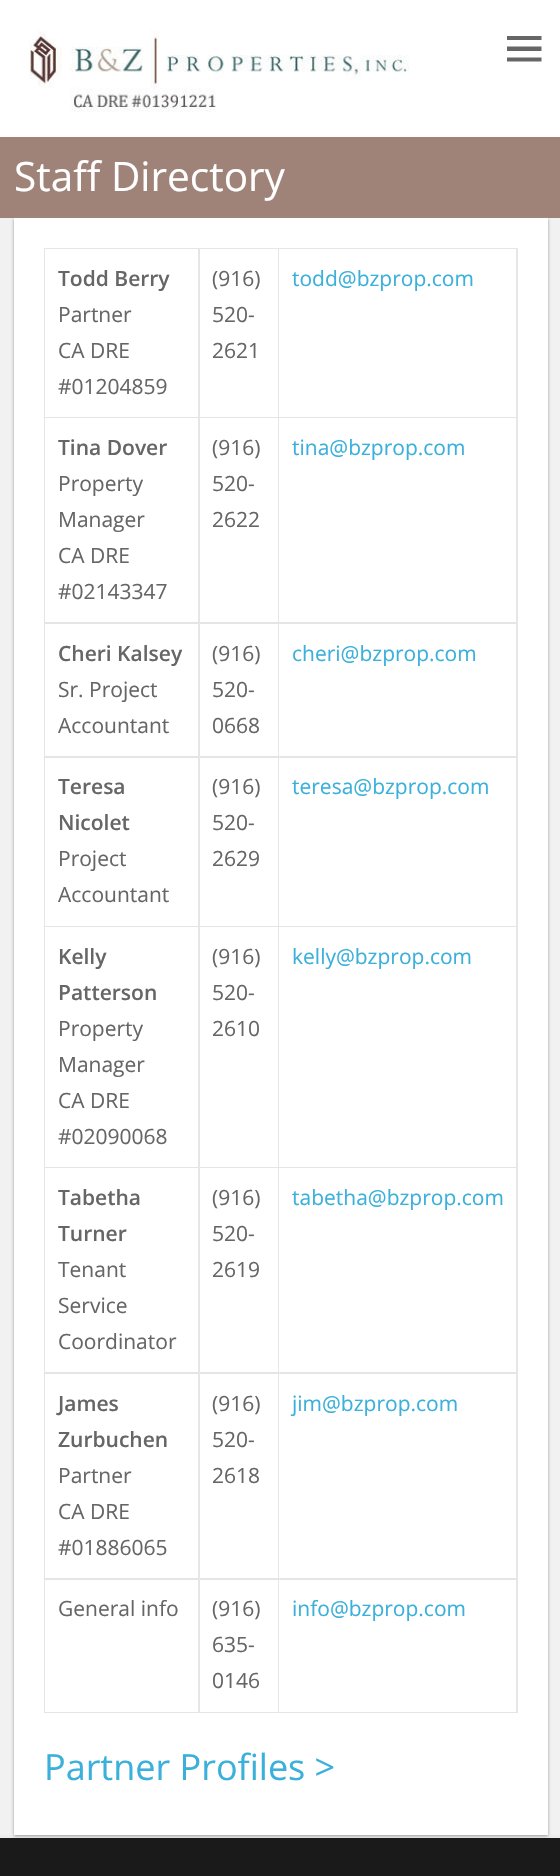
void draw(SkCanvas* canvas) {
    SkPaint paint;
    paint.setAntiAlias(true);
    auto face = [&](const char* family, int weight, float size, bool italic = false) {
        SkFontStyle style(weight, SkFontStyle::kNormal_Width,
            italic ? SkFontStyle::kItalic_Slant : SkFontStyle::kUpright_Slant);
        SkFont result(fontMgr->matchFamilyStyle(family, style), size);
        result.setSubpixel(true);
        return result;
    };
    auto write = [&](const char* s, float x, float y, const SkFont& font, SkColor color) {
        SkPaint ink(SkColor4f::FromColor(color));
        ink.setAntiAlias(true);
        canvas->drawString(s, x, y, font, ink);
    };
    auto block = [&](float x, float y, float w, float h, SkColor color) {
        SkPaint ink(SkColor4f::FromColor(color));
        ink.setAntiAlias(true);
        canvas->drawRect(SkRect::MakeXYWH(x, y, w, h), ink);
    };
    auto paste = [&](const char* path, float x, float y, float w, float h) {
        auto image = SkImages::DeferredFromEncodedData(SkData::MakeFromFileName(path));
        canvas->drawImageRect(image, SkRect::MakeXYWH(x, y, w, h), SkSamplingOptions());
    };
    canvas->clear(SkColorSetRGB(236, 236, 236));
    block(0, 0, 560, 137, SK_ColorWHITE);
    paste("pic1.png", 29, 30, 380, 82);
    paint.setColor(SkColorSetRGB(102, 102, 102));
    canvas->drawPath(SkPathBuilder().moveTo(507, 61.5f).lineTo(507, 57.5f).lineTo(541.5f, 57.5f).lineTo(541.5f, 61.5f).close().moveTo(507, 51).lineTo(507, 46.5f).lineTo(541.5f, 46.5f).lineTo(541.5f, 51).close().moveTo(507, 40).lineTo(507, 36).lineTo(541.5f, 36).lineTo(541.5f, 40).close().detach(), paint);
    block(0, 137, 560, 81, SkColorSetRGB(159, 131, 120));
    auto kFont1 = face("Open Sans", 400, 40.5f);
    write("Staff Directory", 14, 191, kFont1, SK_ColorWHITE);
    block(0, 218, 560, 1617, SkColorSetRGB(241, 241, 241));
    paint.setColor(SkColorSetRGB(153, 153, 153));
    paint.setMaskFilter(SkMaskFilter::MakeBlur(kNormal_SkBlurStyle, 1.5f));
    canvas->drawRect(SkRect::MakeXYWH(14, 219, 534, 1617), paint);
    paint.setMaskFilter(nullptr);
    block(14, 218, 534, 1617, SK_ColorWHITE);
    paint.setColor(SkColorSetRGB(230, 230, 230));
    canvas->drawPath(SkPathBuilder().moveTo(44, 248).lineTo(518, 248).lineTo(518, 249).lineTo(45, 249).close().detach(), paint);
    paint.setColor(SkColorSetARGB(26, 0, 0, 0));
    canvas->drawPath(SkPathBuilder().moveTo(44, 1713).lineTo(44, 248).lineTo(45, 249).lineTo(45, 1713).close().detach(), paint);
    paint.setColor(SkColorSetRGB(230, 230, 230));
    canvas->drawPath(SkPathBuilder().moveTo(200, 249).lineTo(200, 418).lineTo(198, 417).lineTo(198, 249).close().detach(), paint);
    paint.setColor(SkColorSetARGB(26, 0, 0, 0));
    canvas->drawPath(SkPathBuilder().moveTo(200, 418).lineTo(45, 418).lineTo(45, 417).lineTo(198, 417).close().detach(), paint);
    auto kFont2 = face("Open Sans", 600, 21);
    write("Todd Berry", 58, 286, kFont2, SkColorSetRGB(102, 102, 102));
    auto kFont3 = face("Open Sans", 400, 21);
    write("Partner", 58, 322, kFont3, SkColorSetRGB(102, 102, 102));
    write("CA DRE", 58, 358, kFont3, SkColorSetRGB(102, 102, 102));
    write("#01204859", 58, 394, kFont3, SkColorSetRGB(102, 102, 102));
    paint.setColor(SkColorSetRGB(230, 230, 230));
    canvas->drawPath(SkPathBuilder().moveTo(279, 249).lineTo(279, 418).lineTo(278, 417).lineTo(278, 249).close().detach(), paint);
    paint.setColor(SkColorSetARGB(26, 0, 0, 0));
    canvas->drawPath(SkPathBuilder().moveTo(279, 418).lineTo(200, 418).lineTo(200, 417).lineTo(278, 417).close().detach(), paint);
    write("(916)", 212, 286, kFont3, SkColorSetRGB(102, 102, 102));
    write("520-", 212, 322, kFont3, SkColorSetRGB(102, 102, 102));
    write("2621", 212, 358, kFont3, SkColorSetRGB(102, 102, 102));
    paint.setColor(SkColorSetRGB(230, 230, 230));
    canvas->drawPath(SkPathBuilder().moveTo(518, 249).lineTo(518, 418).lineTo(516, 417).lineTo(516, 249).close().detach(), paint);
    paint.setColor(SkColorSetARGB(26, 0, 0, 0));
    canvas->drawPath(SkPathBuilder().moveTo(518, 418).lineTo(279, 418).lineTo(279, 417).lineTo(516, 417).close().detach(), paint);
    write("todd@bzprop.com", 292, 286, kFont3, SkColorSetRGB(58, 176, 219));
    paint.setColor(SkColorSetRGB(230, 230, 230));
    canvas->drawPath(SkPathBuilder().moveTo(200, 418).lineTo(200, 624).lineTo(198, 622).lineTo(198, 418).close().detach(), paint);
    paint.setColor(SkColorSetARGB(26, 0, 0, 0));
    canvas->drawPath(SkPathBuilder().moveTo(200, 624).lineTo(45, 624).lineTo(45, 622).lineTo(198, 622).close().detach(), paint);
    write("Tina Dover", 58, 455, kFont2, SkColorSetRGB(102, 102, 102));
    write("Property", 58, 491, kFont3, SkColorSetRGB(102, 102, 102));
    write("Manager", 58, 527, kFont3, SkColorSetRGB(102, 102, 102));
    write("CA DRE", 58, 563, kFont3, SkColorSetRGB(102, 102, 102));
    write("#02143347", 58, 599, kFont3, SkColorSetRGB(102, 102, 102));
    paint.setColor(SkColorSetRGB(230, 230, 230));
    canvas->drawPath(SkPathBuilder().moveTo(279, 418).lineTo(279, 624).lineTo(278, 622).lineTo(278, 418).close().detach(), paint);
    paint.setColor(SkColorSetARGB(26, 0, 0, 0));
    canvas->drawPath(SkPathBuilder().moveTo(279, 624).lineTo(200, 624).lineTo(200, 622).lineTo(278, 622).close().detach(), paint);
    write("(916)", 212, 455, kFont3, SkColorSetRGB(102, 102, 102));
    write("520-", 212, 491, kFont3, SkColorSetRGB(102, 102, 102));
    write("2622", 212, 527, kFont3, SkColorSetRGB(102, 102, 102));
    paint.setColor(SkColorSetRGB(230, 230, 230));
    canvas->drawPath(SkPathBuilder().moveTo(518, 418).lineTo(518, 624).lineTo(516, 622).lineTo(516, 418).close().detach(), paint);
    paint.setColor(SkColorSetARGB(26, 0, 0, 0));
    canvas->drawPath(SkPathBuilder().moveTo(518, 624).lineTo(279, 624).lineTo(279, 622).lineTo(516, 622).close().detach(), paint);
    write("tina@bzprop.com", 292, 455, kFont3, SkColorSetRGB(58, 176, 219));
    paint.setColor(SkColorSetRGB(230, 230, 230));
    canvas->drawPath(SkPathBuilder().moveTo(200, 624).lineTo(200, 758).lineTo(198, 756).lineTo(198, 624).close().detach(), paint);
    paint.setColor(SkColorSetARGB(26, 0, 0, 0));
    canvas->drawPath(SkPathBuilder().moveTo(200, 758).lineTo(45, 758).lineTo(45, 756).lineTo(198, 756).close().detach(), paint);
    write("Cheri Kalsey", 58, 661, kFont2, SkColorSetRGB(102, 102, 102));
    write("Sr. Project", 58, 697, kFont3, SkColorSetRGB(102, 102, 102));
    write("Accountant", 58, 733, kFont3, SkColorSetRGB(102, 102, 102));
    paint.setColor(SkColorSetRGB(230, 230, 230));
    canvas->drawPath(SkPathBuilder().moveTo(279, 624).lineTo(279, 758).lineTo(278, 756).lineTo(278, 624).close().detach(), paint);
    paint.setColor(SkColorSetARGB(26, 0, 0, 0));
    canvas->drawPath(SkPathBuilder().moveTo(279, 758).lineTo(200, 758).lineTo(200, 756).lineTo(278, 756).close().detach(), paint);
    write("(916)", 212, 661, kFont3, SkColorSetRGB(102, 102, 102));
    write("520-", 212, 697, kFont3, SkColorSetRGB(102, 102, 102));
    write("0668", 212, 733, kFont3, SkColorSetRGB(102, 102, 102));
    paint.setColor(SkColorSetRGB(230, 230, 230));
    canvas->drawPath(SkPathBuilder().moveTo(518, 624).lineTo(518, 758).lineTo(516, 756).lineTo(516, 624).close().detach(), paint);
    paint.setColor(SkColorSetARGB(26, 0, 0, 0));
    canvas->drawPath(SkPathBuilder().moveTo(518, 758).lineTo(279, 758).lineTo(279, 756).lineTo(516, 756).close().detach(), paint);
    write("cheri@bzprop.com", 292, 661, kFont3, SkColorSetRGB(58, 176, 219));
    paint.setColor(SkColorSetRGB(230, 230, 230));
    canvas->drawPath(SkPathBuilder().moveTo(200, 758).lineTo(200, 927).lineTo(198, 926).lineTo(198, 758).close().detach(), paint);
    paint.setColor(SkColorSetARGB(26, 0, 0, 0));
    canvas->drawPath(SkPathBuilder().moveTo(200, 927).lineTo(45, 927).lineTo(45, 926).lineTo(198, 926).close().detach(), paint);
    write("Teresa", 58, 794, kFont2, SkColorSetRGB(102, 102, 102));
    write("Nicolet", 58, 830, kFont2, SkColorSetRGB(102, 102, 102));
    write("Project", 58, 866, kFont3, SkColorSetRGB(102, 102, 102));
    write("Accountant", 58, 902, kFont3, SkColorSetRGB(102, 102, 102));
    paint.setColor(SkColorSetRGB(230, 230, 230));
    canvas->drawPath(SkPathBuilder().moveTo(279, 758).lineTo(279, 927).lineTo(278, 926).lineTo(278, 758).close().detach(), paint);
    paint.setColor(SkColorSetARGB(26, 0, 0, 0));
    canvas->drawPath(SkPathBuilder().moveTo(279, 927).lineTo(200, 927).lineTo(200, 926).lineTo(278, 926).close().detach(), paint);
    write("(916)", 212, 794, kFont3, SkColorSetRGB(102, 102, 102));
    write("520-", 212, 830, kFont3, SkColorSetRGB(102, 102, 102));
    write("2629", 212, 866, kFont3, SkColorSetRGB(102, 102, 102));
    paint.setColor(SkColorSetRGB(230, 230, 230));
    canvas->drawPath(SkPathBuilder().moveTo(518, 758).lineTo(518, 927).lineTo(516, 926).lineTo(516, 758).close().detach(), paint);
    paint.setColor(SkColorSetARGB(26, 0, 0, 0));
    canvas->drawPath(SkPathBuilder().moveTo(518, 927).lineTo(279, 927).lineTo(279, 926).lineTo(516, 926).close().detach(), paint);
    write("teresa@bzprop.com", 292, 794, kFont3, SkColorSetRGB(58, 176, 219));
    paint.setColor(SkColorSetRGB(230, 230, 230));
    canvas->drawPath(SkPathBuilder().moveTo(200, 927).lineTo(200, 1168).lineTo(198, 1167).lineTo(198, 927).close().detach(), paint);
    paint.setColor(SkColorSetARGB(26, 0, 0, 0));
    canvas->drawPath(SkPathBuilder().moveTo(200, 1168).lineTo(45, 1168).lineTo(45, 1167).lineTo(198, 1167).close().detach(), paint);
    write("Kelly", 58, 964, kFont2, SkColorSetRGB(102, 102, 102));
    write("Patterson", 58, 1000, kFont2, SkColorSetRGB(102, 102, 102));
    write("Property", 58, 1036, kFont3, SkColorSetRGB(102, 102, 102));
    write("Manager", 58, 1072, kFont3, SkColorSetRGB(102, 102, 102));
    write("CA DRE", 58, 1108, kFont3, SkColorSetRGB(102, 102, 102));
    write("#02090068", 58, 1144, kFont3, SkColorSetRGB(102, 102, 102));
    paint.setColor(SkColorSetRGB(230, 230, 230));
    canvas->drawPath(SkPathBuilder().moveTo(279, 927).lineTo(279, 1168).lineTo(278, 1167).lineTo(278, 927).close().detach(), paint);
    paint.setColor(SkColorSetARGB(26, 0, 0, 0));
    canvas->drawPath(SkPathBuilder().moveTo(279, 1168).lineTo(200, 1168).lineTo(200, 1167).lineTo(278, 1167).close().detach(), paint);
    write("(916)", 212, 964, kFont3, SkColorSetRGB(102, 102, 102));
    write("520-", 212, 1000, kFont3, SkColorSetRGB(102, 102, 102));
    write("2610", 212, 1036, kFont3, SkColorSetRGB(102, 102, 102));
    paint.setColor(SkColorSetRGB(230, 230, 230));
    canvas->drawPath(SkPathBuilder().moveTo(518, 927).lineTo(518, 1168).lineTo(516, 1167).lineTo(516, 927).close().detach(), paint);
    paint.setColor(SkColorSetARGB(26, 0, 0, 0));
    canvas->drawPath(SkPathBuilder().moveTo(518, 1168).lineTo(279, 1168).lineTo(279, 1167).lineTo(516, 1167).close().detach(), paint);
    write("kelly@bzprop.com", 292, 964, kFont3, SkColorSetRGB(58, 176, 219));
    paint.setColor(SkColorSetRGB(230, 230, 230));
    canvas->drawPath(SkPathBuilder().moveTo(200, 1168).lineTo(200, 1374).lineTo(198, 1372).lineTo(198, 1168).close().detach(), paint);
    paint.setColor(SkColorSetARGB(26, 0, 0, 0));
    canvas->drawPath(SkPathBuilder().moveTo(200, 1374).lineTo(45, 1374).lineTo(45, 1372).lineTo(198, 1372).close().detach(), paint);
    write("Tabetha", 58, 1205, kFont2, SkColorSetRGB(102, 102, 102));
    write("Turner", 58, 1241, kFont2, SkColorSetRGB(102, 102, 102));
    write("Tenant", 58, 1277, kFont3, SkColorSetRGB(102, 102, 102));
    write("Service", 58, 1313, kFont3, SkColorSetRGB(102, 102, 102));
    write("Coordinator", 58, 1349, kFont3, SkColorSetRGB(102, 102, 102));
    paint.setColor(SkColorSetRGB(230, 230, 230));
    canvas->drawPath(SkPathBuilder().moveTo(279, 1168).lineTo(279, 1374).lineTo(278, 1372).lineTo(278, 1168).close().detach(), paint);
    paint.setColor(SkColorSetARGB(26, 0, 0, 0));
    canvas->drawPath(SkPathBuilder().moveTo(279, 1374).lineTo(200, 1374).lineTo(200, 1372).lineTo(278, 1372).close().detach(), paint);
    write("(916)", 212, 1205, kFont3, SkColorSetRGB(102, 102, 102));
    write("520-", 212, 1241, kFont3, SkColorSetRGB(102, 102, 102));
    write("2619", 212, 1277, kFont3, SkColorSetRGB(102, 102, 102));
    paint.setColor(SkColorSetRGB(230, 230, 230));
    canvas->drawPath(SkPathBuilder().moveTo(518, 1168).lineTo(518, 1374).lineTo(516, 1372).lineTo(516, 1168).close().detach(), paint);
    paint.setColor(SkColorSetARGB(26, 0, 0, 0));
    canvas->drawPath(SkPathBuilder().moveTo(518, 1374).lineTo(279, 1374).lineTo(279, 1372).lineTo(516, 1372).close().detach(), paint);
    write("tabetha@bzprop.com", 292, 1205, kFont3, SkColorSetRGB(58, 176, 219));
    paint.setColor(SkColorSetRGB(230, 230, 230));
    canvas->drawPath(SkPathBuilder().moveTo(200, 1374).lineTo(200, 1580).lineTo(198, 1578).lineTo(198, 1374).close().detach(), paint);
    paint.setColor(SkColorSetARGB(26, 0, 0, 0));
    canvas->drawPath(SkPathBuilder().moveTo(200, 1580).lineTo(45, 1580).lineTo(45, 1578).lineTo(198, 1578).close().detach(), paint);
    write("James", 58, 1411, kFont2, SkColorSetRGB(102, 102, 102));
    write("Zurbuchen", 58, 1447, kFont2, SkColorSetRGB(102, 102, 102));
    write("Partner", 58, 1483, kFont3, SkColorSetRGB(102, 102, 102));
    write("CA DRE", 58, 1519, kFont3, SkColorSetRGB(102, 102, 102));
    write("#01886065", 58, 1555, kFont3, SkColorSetRGB(102, 102, 102));
    paint.setColor(SkColorSetRGB(230, 230, 230));
    canvas->drawPath(SkPathBuilder().moveTo(279, 1374).lineTo(279, 1580).lineTo(278, 1578).lineTo(278, 1374).close().detach(), paint);
    paint.setColor(SkColorSetARGB(26, 0, 0, 0));
    canvas->drawPath(SkPathBuilder().moveTo(279, 1580).lineTo(200, 1580).lineTo(200, 1578).lineTo(278, 1578).close().detach(), paint);
    write("(916)", 212, 1411, kFont3, SkColorSetRGB(102, 102, 102));
    write("520-", 212, 1447, kFont3, SkColorSetRGB(102, 102, 102));
    write("2618", 212, 1483, kFont3, SkColorSetRGB(102, 102, 102));
    paint.setColor(SkColorSetRGB(230, 230, 230));
    canvas->drawPath(SkPathBuilder().moveTo(518, 1374).lineTo(518, 1580).lineTo(516, 1578).lineTo(516, 1374).close().detach(), paint);
    paint.setColor(SkColorSetARGB(26, 0, 0, 0));
    canvas->drawPath(SkPathBuilder().moveTo(518, 1580).lineTo(279, 1580).lineTo(279, 1578).lineTo(516, 1578).close().detach(), paint);
    write("jim@bzprop.com", 292, 1411, kFont3, SkColorSetRGB(58, 176, 219));
    paint.setColor(SkColorSetRGB(230, 230, 230));
    canvas->drawPath(SkPathBuilder().moveTo(200, 1580).lineTo(200, 1713).lineTo(198, 1712).lineTo(198, 1580).close().detach(), paint);
    paint.setColor(SkColorSetARGB(26, 0, 0, 0));
    canvas->drawPath(SkPathBuilder().moveTo(200, 1713).lineTo(45, 1713).lineTo(45, 1712).lineTo(198, 1712).close().detach(), paint);
    write("General info", 58, 1616, kFont3, SkColorSetRGB(102, 102, 102));
    paint.setColor(SkColorSetRGB(230, 230, 230));
    canvas->drawPath(SkPathBuilder().moveTo(279, 1580).lineTo(279, 1713).lineTo(278, 1712).lineTo(278, 1580).close().detach(), paint);
    paint.setColor(SkColorSetARGB(26, 0, 0, 0));
    canvas->drawPath(SkPathBuilder().moveTo(279, 1713).lineTo(200, 1713).lineTo(200, 1712).lineTo(278, 1712).close().detach(), paint);
    write("(916)", 212, 1616, kFont3, SkColorSetRGB(102, 102, 102));
    write("635-", 212, 1652, kFont3, SkColorSetRGB(102, 102, 102));
    write("0146", 212, 1688, kFont3, SkColorSetRGB(102, 102, 102));
    paint.setColor(SkColorSetRGB(230, 230, 230));
    canvas->drawPath(SkPathBuilder().moveTo(518, 1580).lineTo(518, 1713).lineTo(516, 1712).lineTo(516, 1580).close().detach(), paint);
    paint.setColor(SkColorSetARGB(26, 0, 0, 0));
    canvas->drawPath(SkPathBuilder().moveTo(518, 1713).lineTo(279, 1713).lineTo(279, 1712).lineTo(516, 1712).close().detach(), paint);
    write("info@bzprop.com", 292, 1616, kFont3, SkColorSetRGB(58, 176, 219));
    auto kFont4 = face("Open Sans", 400, 36);
    write("Partner Profiles >", 44, 1780, kFont4, SkColorSetRGB(58, 176, 219));
    block(0, 1838, 560, 38, SkColorSetRGB(26, 26, 26));
}
